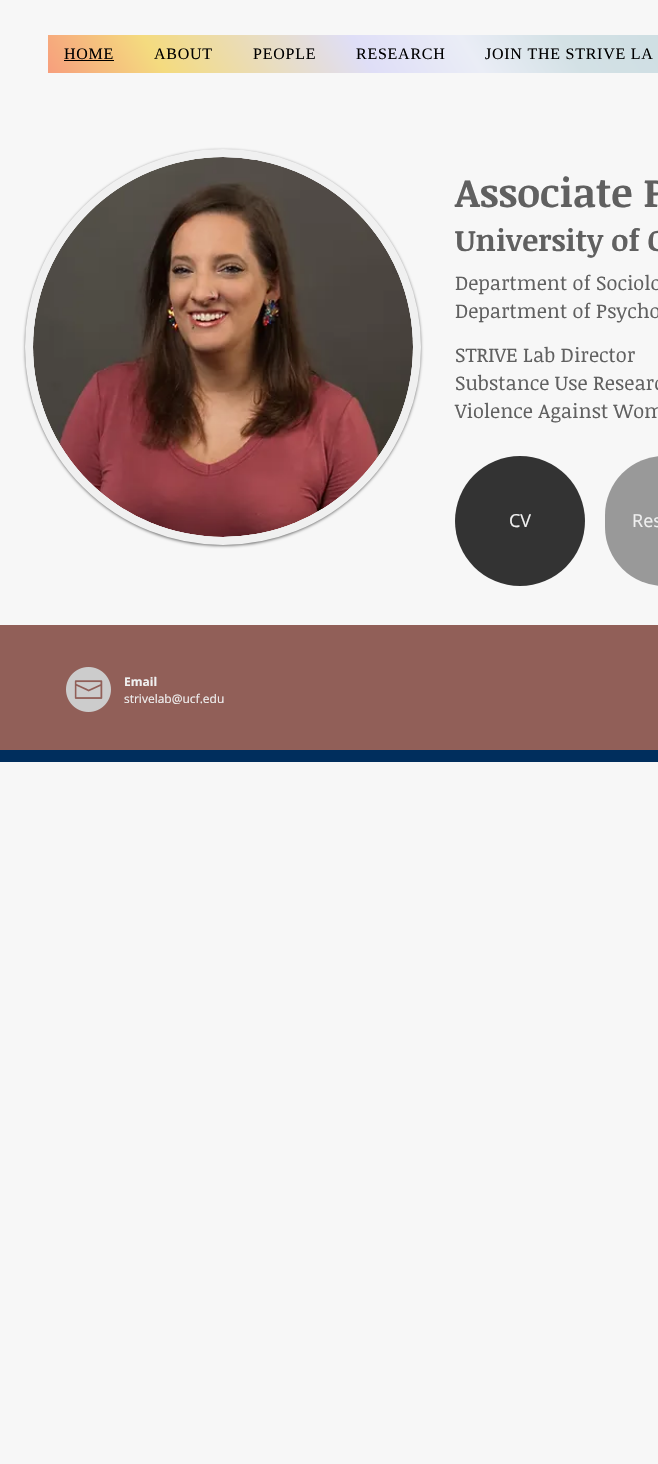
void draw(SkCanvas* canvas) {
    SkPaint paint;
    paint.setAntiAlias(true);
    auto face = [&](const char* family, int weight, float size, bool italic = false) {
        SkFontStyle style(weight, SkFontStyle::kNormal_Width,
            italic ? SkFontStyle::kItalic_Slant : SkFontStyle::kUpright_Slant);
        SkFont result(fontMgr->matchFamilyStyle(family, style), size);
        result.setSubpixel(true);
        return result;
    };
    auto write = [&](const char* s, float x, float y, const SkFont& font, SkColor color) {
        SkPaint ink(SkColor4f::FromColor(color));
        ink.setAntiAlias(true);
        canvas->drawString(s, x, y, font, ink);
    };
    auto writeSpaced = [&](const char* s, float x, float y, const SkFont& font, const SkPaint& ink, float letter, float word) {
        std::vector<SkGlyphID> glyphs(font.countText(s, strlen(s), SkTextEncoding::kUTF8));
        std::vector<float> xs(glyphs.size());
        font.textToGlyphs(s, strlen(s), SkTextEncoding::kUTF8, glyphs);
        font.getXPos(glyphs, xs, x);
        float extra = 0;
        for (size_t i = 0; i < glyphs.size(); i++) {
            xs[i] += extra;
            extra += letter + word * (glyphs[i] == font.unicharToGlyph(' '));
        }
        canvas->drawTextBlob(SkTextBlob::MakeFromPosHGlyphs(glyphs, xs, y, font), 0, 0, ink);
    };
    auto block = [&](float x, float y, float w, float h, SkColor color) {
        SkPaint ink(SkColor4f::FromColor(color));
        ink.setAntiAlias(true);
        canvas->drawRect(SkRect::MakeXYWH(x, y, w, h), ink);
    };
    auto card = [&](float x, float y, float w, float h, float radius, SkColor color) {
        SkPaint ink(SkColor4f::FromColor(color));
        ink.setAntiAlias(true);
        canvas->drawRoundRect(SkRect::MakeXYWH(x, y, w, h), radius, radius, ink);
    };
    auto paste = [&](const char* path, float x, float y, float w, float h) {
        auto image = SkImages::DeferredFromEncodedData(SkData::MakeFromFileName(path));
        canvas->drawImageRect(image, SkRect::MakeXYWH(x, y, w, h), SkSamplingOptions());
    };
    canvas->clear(SkColorSetRGB(247, 247, 247));
    {
        const SkColor colors[] = {SkColorSetRGB(247, 158, 125), SkColorSetRGB(244, 219, 127), SkColorSetRGB(223, 222, 247), SkColorSetRGB(234, 237, 246), SkColorSetRGB(211, 225, 229), SkColorSetRGB(204, 221, 226), SkColorSetRGB(230, 229, 244), SkColorSetRGB(166, 161, 229)};
        const float stops[] = {0, 0.13f, 0.36f, 0.48f, 0.59f, 0.76f, 0.86f, 0.99f};
        const SkPoint ends[] = {{163, 258}, {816, -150}};
        paint.setShader(SkGradientShader::MakeLinear(ends, colors, stops, 8, SkTileMode::kClamp));
        paint.setAlpha(255);
    }
    canvas->drawRect(SkRect::MakeXYWH(48, 35, 610, 38), paint);
    auto kFont1 = face("Liberation Serif", 400, 16);
    paint.setShader(nullptr);
    paint.setColor(SK_ColorBLACK);
    writeSpaced("HOME", 64, 59, kFont1, paint, 0.75f, 0);
    block(64, 60, 50, 1, SK_ColorBLACK);
    writeSpaced("ABOUT", 154, 59, kFont1, paint, 0.75f, 0);
    writeSpaced("PEOPLE", 253, 59, kFont1, paint, 0.75f, 0);
    writeSpaced("RESEARCH", 356, 59, kFont1, paint, 0.75f, 0);
    writeSpaced("JOIN THE STRIVE LA", 485, 59, kFont1, paint, 0.75f, 0);
    paint.setColor(SkColorSetARGB(128, 0, 0, 0));
    paint.setMaskFilter(SkMaskFilter::MakeBlur(kNormal_SkBlurStyle, 1.5f));
    canvas->drawRoundRect(SkRect::MakeXYWH(25, 150, 396, 396), 198, 198, paint);
    paint.setMaskFilter(nullptr);
    paint.setColor(SkColorSetRGB(240, 240, 240));
    canvas->drawCircle(223, 347, 194, paint);
    paint.setStyle(SkPaint::kStroke_Style);
    paint.setStrokeWidth(8);
    canvas->drawCircle(223, 347, 194, paint);
    paste("pic1.png", 33, 157, 380, 380);
    auto kFont2 = face("Noticia Text", 700, 40);
    write("Associate P", 455, 207, kFont2, SkColorSetRGB(96, 96, 96));
    auto kFont3 = face("Noticia Text", 700, 30);
    write("University of C", 455, 251, kFont3, SkColorSetRGB(96, 96, 96));
    auto kFont4 = face("Noticia Text", 400, 20);
    write("Department of Sociolo", 455, 290, kFont4, SkColorSetRGB(96, 96, 96));
    write("Department of Psycho", 455, 318, kFont4, SkColorSetRGB(96, 96, 96));
    write("STRIVE Lab Director", 455, 362, kFont4, SkColorSetRGB(96, 96, 96));
    write("Substance Use Researc", 455, 390, kFont4, SkColorSetRGB(96, 96, 96));
    write("Violence Against Wom", 455, 418, kFont4, SkColorSetRGB(96, 96, 96));
    paint.setStyle(SkPaint::kFill_Style);
    paint.setColor(SkColorSetRGB(51, 51, 51));
    canvas->drawCircle(520, 521, 65, paint);
    auto kFont5 = face("Open Sans", 400, 18);
    write("CV", 509, 527, kFont5, SkColorSetRGB(240, 240, 240));
    card(605, 456, 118, 130, 65, SkColorSetRGB(153, 153, 153));
    write("Res", 632, 527, kFont5, SkColorSetRGB(240, 240, 240));
    block(0, 625, 658, 125, SkColorSetRGB(145, 95, 88));
    block(0, 750, 658, 12, SkColorSetRGB(0, 46, 93));
    paste("pic2.png", 66, 667, 45, 45);
    auto kFont6 = face("Open Sans", 700, 12);
    write("Email", 124, 686, kFont6, SkColorSetRGB(240, 240, 240));
    auto kFont7 = face("Open Sans", 400, 12);
    write("strivelab@ucf.edu", 124, 703, kFont7, SkColorSetRGB(240, 240, 240));
}
